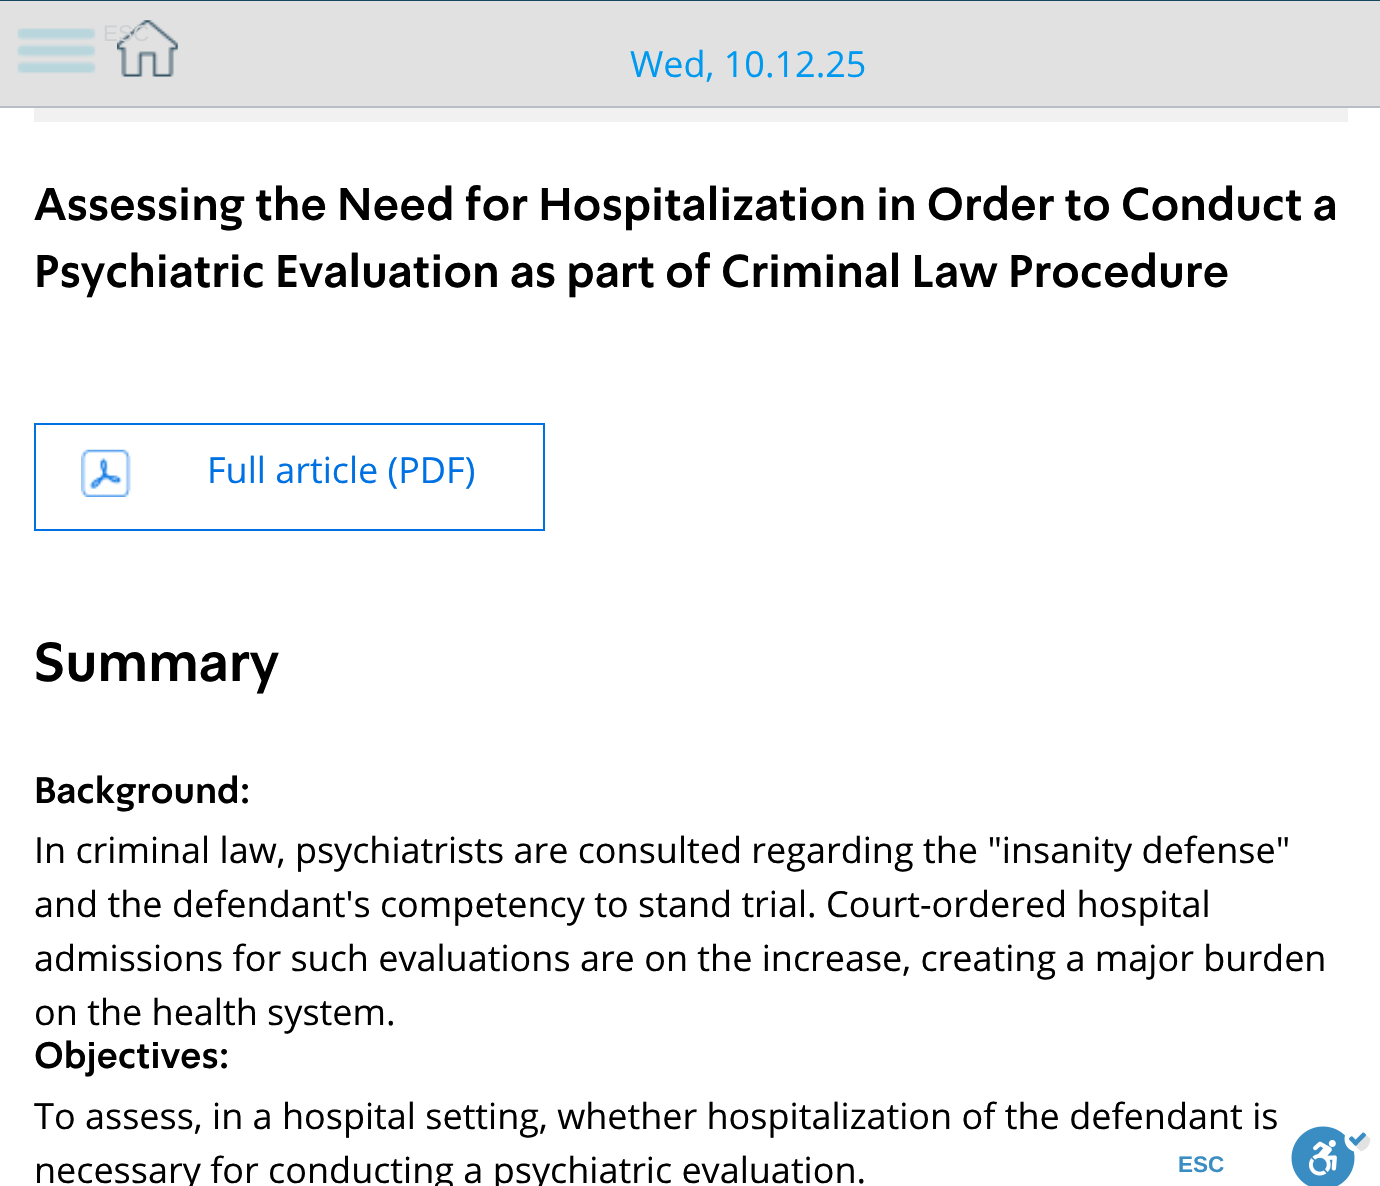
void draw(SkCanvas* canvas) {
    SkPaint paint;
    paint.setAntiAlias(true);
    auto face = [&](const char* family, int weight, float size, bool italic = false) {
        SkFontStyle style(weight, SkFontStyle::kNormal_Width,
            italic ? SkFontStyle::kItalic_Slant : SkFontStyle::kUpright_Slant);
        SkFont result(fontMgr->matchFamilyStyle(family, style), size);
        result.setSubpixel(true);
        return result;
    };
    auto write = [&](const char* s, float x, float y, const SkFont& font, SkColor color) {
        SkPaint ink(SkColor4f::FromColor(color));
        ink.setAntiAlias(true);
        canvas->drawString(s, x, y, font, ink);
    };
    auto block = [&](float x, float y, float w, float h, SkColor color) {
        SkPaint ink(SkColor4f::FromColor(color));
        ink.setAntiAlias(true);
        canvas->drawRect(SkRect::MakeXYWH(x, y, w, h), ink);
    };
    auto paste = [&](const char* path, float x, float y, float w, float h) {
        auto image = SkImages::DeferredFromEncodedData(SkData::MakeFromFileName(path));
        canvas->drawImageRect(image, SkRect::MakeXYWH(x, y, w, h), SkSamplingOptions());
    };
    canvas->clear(SK_ColorWHITE);
    block(0, 0, 1380, 1, SkColorSetRGB(21, 73, 95));
    block(0, 1, 1380, 105, SkColorSetRGB(225, 225, 225));
    paste("pic3.png", 117, 20, 61, 57);
    auto kFont1 = face("Liberation Sans", 400, 22.5f);
    write("ESC", 103, 41, kFont1, SkColorSetRGB(206, 209, 211));
    auto kFont2 = face("Liberation Sans", 700, 22.5f);
    write("ESC", 1178, 1172, kFont2, SkColorSetRGB(58, 141, 194));
    paste("pic1.png", 1291, 1126, 80, 60);
    paste("pic2.png", 17, 28, 79, 46);
    block(0, 106, 1380, 2, SkColorSetRGB(184, 190, 195));
    auto kFont3 = face("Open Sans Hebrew", 400, 36);
    write("Wed, 10.12.25", 630, 77, kFont3, SkColorSetRGB(0, 153, 240));
    block(34, 108, 1314, 14, SkColorSetRGB(241, 241, 241));
    auto kFont4 = face("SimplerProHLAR", 700, 45);
    write("Assessing the Need for Hospitalization in Order to Conduct a", 34, 220, kFont4, SK_ColorBLACK);
    write("Psychiatric Evaluation as part of Criminal Law Procedure", 34, 287, kFont4, SK_ColorBLACK);
    paste("pic4.png", 81, 449, 50, 48);
    paint.setStyle(SkPaint::kStroke_Style);
    paint.setStrokeWidth(2);
    paint.setColor(SkColorSetRGB(0, 113, 227));
    canvas->drawRect(SkRect::MakeXYWH(35, 424, 509, 106), paint);
    write("Full article (PDF)", 207, 483, kFont3, SkColorSetRGB(0, 113, 227));
    auto kFont5 = face("SimplerProHLAR", 700, 54);
    write("Summary", 34, 681, kFont5, SK_ColorBLACK);
    auto kFont6 = face("SimplerProHLAR", 700, 36);
    write("Background:", 34, 803, kFont6, SK_ColorBLACK);
    write("In criminal law, psychiatrists are consulted regarding the \"insanity defense\"", 34, 863, kFont3, SK_ColorBLACK);
    write("and the defendant's competency to stand trial. Court-ordered hospital", 34, 917, kFont3, SK_ColorBLACK);
    write("admissions for such evaluations are on the increase, creating a major burden", 34, 971, kFont3, SK_ColorBLACK);
    write("on the health system.", 34, 1025, kFont3, SK_ColorBLACK);
    write("Objectives:", 34, 1068, kFont6, SK_ColorBLACK);
    write("To assess, in a hospital setting, whether hospitalization of the defendant is", 34, 1129, kFont3, SK_ColorBLACK);
    write("necessary for conducting a psychiatric evaluation.", 34, 1183, kFont3, SK_ColorBLACK);
}
